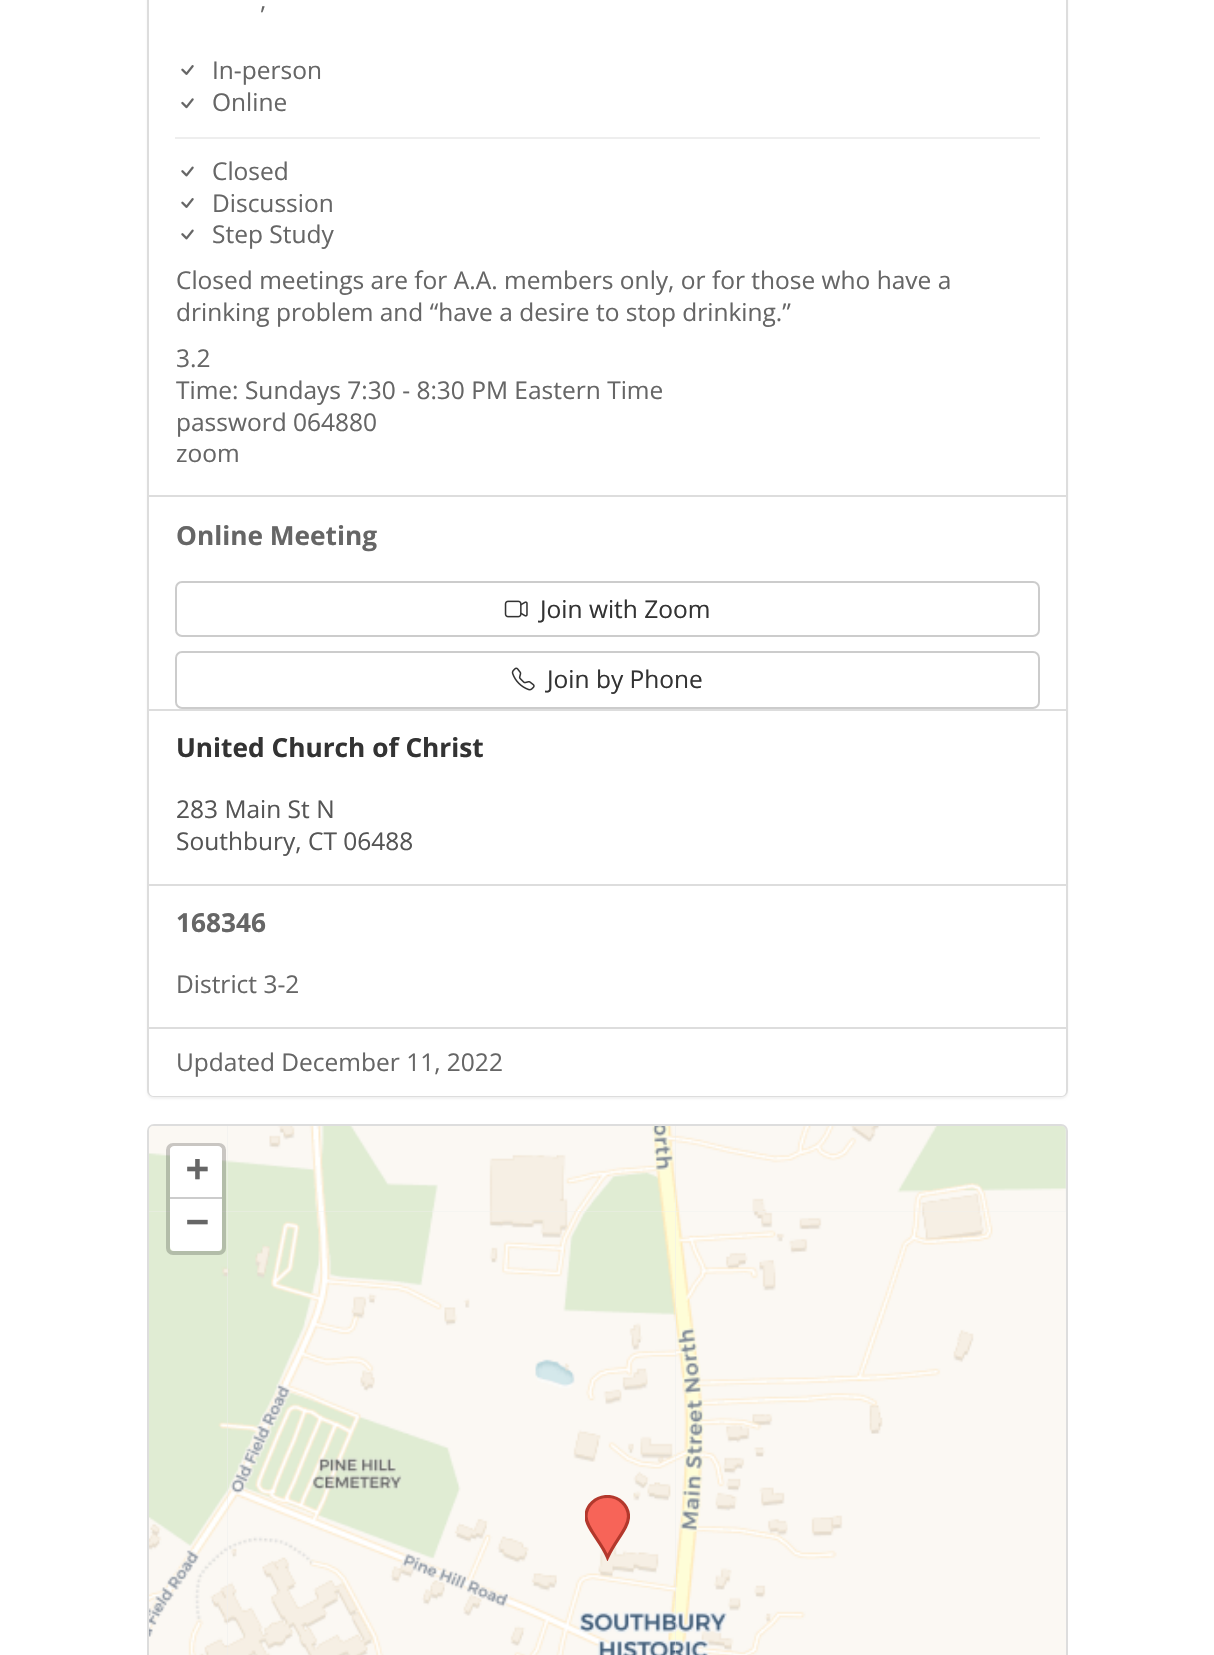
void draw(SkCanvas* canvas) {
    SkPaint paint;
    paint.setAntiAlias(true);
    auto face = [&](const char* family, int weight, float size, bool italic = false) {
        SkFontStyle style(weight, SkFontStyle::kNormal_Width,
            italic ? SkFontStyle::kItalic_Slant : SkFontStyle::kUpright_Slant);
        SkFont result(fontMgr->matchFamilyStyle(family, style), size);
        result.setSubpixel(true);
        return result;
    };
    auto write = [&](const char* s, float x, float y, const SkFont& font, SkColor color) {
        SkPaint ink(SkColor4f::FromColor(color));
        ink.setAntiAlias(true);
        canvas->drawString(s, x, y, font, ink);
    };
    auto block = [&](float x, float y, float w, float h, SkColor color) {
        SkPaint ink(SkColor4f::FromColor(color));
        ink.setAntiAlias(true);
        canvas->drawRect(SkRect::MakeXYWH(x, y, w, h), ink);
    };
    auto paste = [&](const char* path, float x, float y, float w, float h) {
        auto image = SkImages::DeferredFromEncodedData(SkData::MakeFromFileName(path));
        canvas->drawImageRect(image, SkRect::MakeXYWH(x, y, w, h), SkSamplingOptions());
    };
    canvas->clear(SK_ColorWHITE);
    paint.setColor(SkColorSetARGB(13, 0, 0, 0));
    paint.setMaskFilter(SkMaskFilter::MakeBlur(kNormal_SkBlurStyle, 1));
    canvas->drawRoundRect(SkRect::MakeXYWH(147, -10, 921, 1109), 7, 7, paint);
    paint.setMaskFilter(nullptr);
    paint.setColor(SK_ColorWHITE);
    canvas->drawRoundRect(SkRect::MakeXYWH(148, -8, 919, 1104), 6, 6, paint);
    paint.setStyle(SkPaint::kStroke_Style);
    paint.setStrokeWidth(2);
    paint.setColor(SkColorSetRGB(221, 221, 221));
    canvas->drawRoundRect(SkRect::MakeXYWH(148, -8, 919, 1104), 6, 6, paint);
    block(149, 495, 917, 2, SkColorSetRGB(221, 221, 221));
    auto kFont1 = face("Open Sans", 400, 24.5f);
    write(",", 260, 9, kFont1, SkColorSetRGB(102, 102, 102));
    paste("pic1.png", 181, 65, 13, 10);
    write("In-person", 212, 79, kFont1, SkColorSetRGB(102, 102, 102));
    paste("pic2.png", 181, 98, 13, 11);
    write("Online", 212, 111, kFont1, SkColorSetRGB(102, 102, 102));
    block(175, 137, 865, 2, SkColorSetRGB(238, 238, 238));
    paste("pic3.png", 181, 166, 13, 11);
    write("Closed", 212, 180, kFont1, SkColorSetRGB(102, 102, 102));
    paste("pic1.png", 181, 198, 13, 10);
    write("Discussion", 212, 212, kFont1, SkColorSetRGB(102, 102, 102));
    paste("pic3.png", 181, 229, 13, 11);
    write("Step Study", 212, 243, kFont1, SkColorSetRGB(102, 102, 102));
    write("Closed meetings are for A.A. members only, or for those who have a", 176, 289, kFont1, SkColorSetRGB(102, 102, 102));
    write("drinking problem and “have a desire to stop drinking.”", 176, 321, kFont1, SkColorSetRGB(102, 102, 102));
    write("3.2", 176, 367, kFont1, SkColorSetRGB(102, 102, 102));
    write("Time: Sundays 7:30 - 8:30 PM Eastern Time", 176, 399, kFont1, SkColorSetRGB(102, 102, 102));
    write("password 064880", 176, 431, kFont1, SkColorSetRGB(102, 102, 102));
    write("zoom", 176, 462, kFont1, SkColorSetRGB(102, 102, 102));
    block(149, 709, 917, 2, SkColorSetRGB(221, 221, 221));
    auto kFont2 = face("Open Sans", 700, 26.25f);
    write("Online Meeting", 176, 545, kFont2, SkColorSetRGB(102, 102, 102));
    paint.setColor(SkColorSetRGB(204, 204, 204));
    canvas->drawRoundRect(SkRect::MakeXYWH(176, 582, 863, 54), 6, 6, paint);
    paste("pic4.png", 504, 600, 24, 18);
    write("Join with Zoom", 540, 618, kFont1, SkColorSetRGB(51, 51, 51));
    canvas->drawRoundRect(SkRect::MakeXYWH(176, 652, 863, 56), 6, 6, paint);
    paste("pic5.png", 511, 667, 24, 24);
    write("Join by Phone", 547, 688, kFont1, SkColorSetRGB(51, 51, 51));
    block(149, 884, 917, 2, SkColorSetRGB(221, 221, 221));
    write("United Church of Christ", 176, 757, kFont2, SkColorSetRGB(51, 51, 51));
    write("283 Main St N", 176, 818, kFont1, SkColorSetRGB(85, 85, 85));
    write("Southbury, CT 06488", 176, 850, kFont1, SkColorSetRGB(85, 85, 85));
    write("168346", 176, 932, kFont2, SkColorSetRGB(102, 102, 102));
    write("District 3-2", 176, 993, kFont1, SkColorSetRGB(102, 102, 102));
    paint.setStyle(SkPaint::kFill_Style);
    paint.setColor(SK_ColorWHITE);
    canvas->drawPath(SkPathBuilder().moveTo(149, 1027).lineTo(1066, 1027).lineTo(1066, 1091).cubicTo(1066, 1094, 1064, 1096, 1061, 1096).lineTo(154, 1096).cubicTo(151, 1096, 149, 1094, 149, 1091).close().detach(), paint);
    block(149, 1027, 917, 2, SkColorSetRGB(221, 221, 221));
    write("Updated December 11, 2022", 176, 1071, kFont1, SkColorSetRGB(102, 102, 102));
    paint.setColor(SkColorSetRGB(238, 238, 238));
    canvas->drawRoundRect(SkRect::MakeXYWH(148, 1125, 919, 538), 6, 6, paint);
    paint.setStyle(SkPaint::kStroke_Style);
    paint.setColor(SkColorSetRGB(221, 221, 221));
    canvas->drawRoundRect(SkRect::MakeXYWH(148, 1125, 919, 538), 6, 6, paint);
    paste("pic6.png", 149, 1126, 79, 85);
    paste("pic7.png", 228, 1126, 448, 85);
    paste("pic8.png", 676, 1126, 390, 85);
    paste("pic9.png", 149, 1211, 79, 444);
    paste("pic10.png", 228, 1211, 448, 444);
    paste("pic11.png", 676, 1211, 390, 444);
    paint.setStyle(SkPaint::kFill_Style);
    paint.setColor(SkColorSetRGB(247, 100, 88));
    canvas->drawPath(SkPathBuilder().moveTo(607, 1496).cubicTo(619, 1496, 628, 1505, 628, 1517).cubicTo(628, 1528, 616, 1540, 607, 1557).cubicTo(601, 1542, 586, 1528, 586, 1517).cubicTo(586, 1505, 596, 1496, 607, 1496).close().detach(), paint);
    canvas->save();
    canvas->clipRect(SkRect::MakeXYWH(585, 1495, 45, 66));
    paint.setStyle(SkPaint::kStroke_Style);
    paint.setStrokeWidth(3.2f);
    paint.setColor(SkColorSetRGB(179, 56, 44));
    canvas->drawPath(SkPathBuilder().moveTo(607.5f, 1496.5f).cubicTo(619, 1496.5f, 628.5f, 1505.5f, 628.5f, 1516.5f).cubicTo(628.5f, 1528, 615.5f, 1540, 607.5f, 1557.5f).cubicTo(601.5f, 1542, 586, 1528, 586, 1516.5f).cubicTo(586, 1505.5f, 595.5f, 1496.5f, 607.5f, 1496.5f).close().detach(), paint);
    canvas->restore();
    paint.setStrokeWidth(4);
    paint.setColor(SkColorSetARGB(51, 0, 0, 0));
    canvas->drawRoundRect(SkRect::MakeXYWH(168, 1145, 56, 108), 5, 5, paint);
    paint.setStyle(SkPaint::kFill_Style);
    paint.setColor(SK_ColorWHITE);
    canvas->drawPath(SkPathBuilder().moveTo(174, 1146).lineTo(218, 1146).cubicTo(220, 1146, 222, 1148, 222, 1150).lineTo(222, 1199).lineTo(170, 1199).lineTo(170, 1150).cubicTo(170, 1148, 172, 1146, 174, 1146).close().detach(), paint);
    block(170, 1197, 52, 2, SkColorSetRGB(204, 204, 204));
    auto kFont3 = face("DejaVu Sans Mono", 700, 38);
    write("+", 186, 1181, kFont3, SkColorSetRGB(102, 102, 102));
    canvas->drawPath(SkPathBuilder().moveTo(170, 1199).lineTo(222, 1199).lineTo(222, 1247).cubicTo(222, 1249, 220, 1251, 218, 1251).lineTo(174, 1251).cubicTo(172, 1251, 170, 1249, 170, 1247).close().detach(), paint);
    write("−", 186, 1234, kFont3, SkColorSetRGB(102, 102, 102));
}
